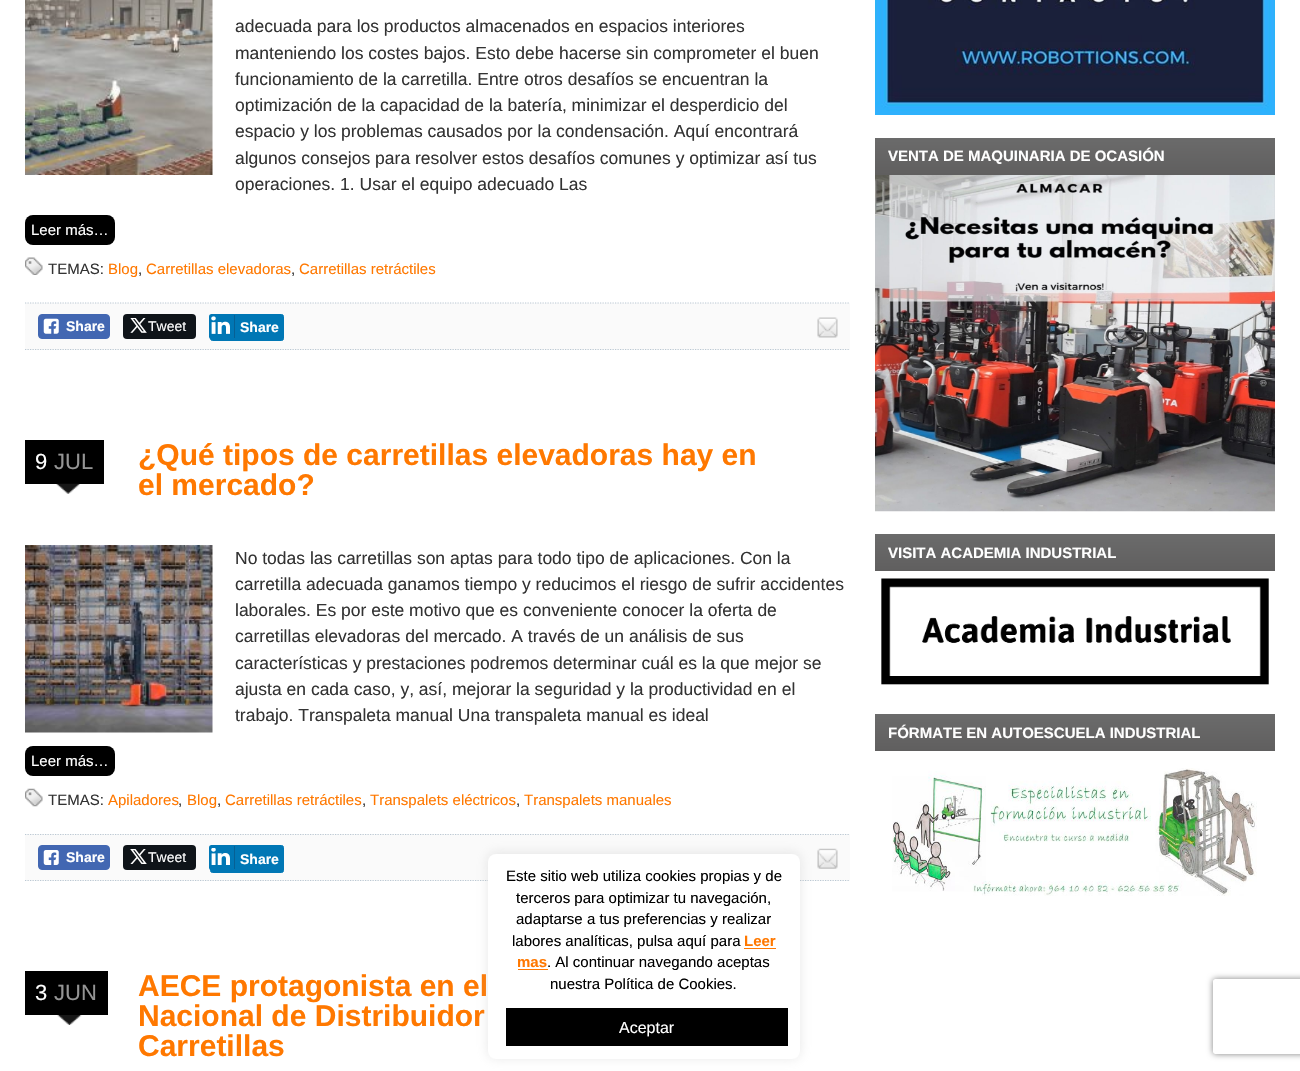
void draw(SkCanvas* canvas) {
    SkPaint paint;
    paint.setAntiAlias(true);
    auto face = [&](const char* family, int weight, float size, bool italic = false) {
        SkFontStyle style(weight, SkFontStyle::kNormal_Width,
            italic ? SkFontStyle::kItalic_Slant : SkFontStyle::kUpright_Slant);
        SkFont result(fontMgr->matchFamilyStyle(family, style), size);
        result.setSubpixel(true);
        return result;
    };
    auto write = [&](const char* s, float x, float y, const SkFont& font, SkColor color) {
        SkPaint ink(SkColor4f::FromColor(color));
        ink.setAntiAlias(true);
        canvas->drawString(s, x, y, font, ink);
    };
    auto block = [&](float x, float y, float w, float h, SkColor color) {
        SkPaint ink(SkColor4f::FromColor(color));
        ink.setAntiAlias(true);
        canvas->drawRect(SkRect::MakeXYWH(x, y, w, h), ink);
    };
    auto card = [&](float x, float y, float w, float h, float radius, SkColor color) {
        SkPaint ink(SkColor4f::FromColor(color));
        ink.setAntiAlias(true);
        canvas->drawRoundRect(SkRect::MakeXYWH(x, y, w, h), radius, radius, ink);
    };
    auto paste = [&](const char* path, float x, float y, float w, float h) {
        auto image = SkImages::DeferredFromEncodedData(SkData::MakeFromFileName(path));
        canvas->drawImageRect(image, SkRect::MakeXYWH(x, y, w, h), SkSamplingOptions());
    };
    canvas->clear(SK_ColorWHITE);
    paste("pic1.png", 25, 0, 188, 175);
    auto kFont1 = face("Liberation Sans", 400, 17.5f);
    write("adecuada para los productos almacenados en espacios interiores", 235, 32, kFont1, SkColorSetRGB(51, 51, 51));
    write("manteniendo los costes bajos. Esto debe hacerse sin comprometer el buen", 235, 59, kFont1, SkColorSetRGB(51, 51, 51));
    write("funcionamiento de la carretilla. Entre otros desafíos se encuentran la", 235, 85, kFont1, SkColorSetRGB(51, 51, 51));
    write("optimización de la capacidad de la batería, minimizar el desperdicio del", 235, 111, kFont1, SkColorSetRGB(51, 51, 51));
    write("espacio y los problemas causados por la condensación. Aquí encontrará", 235, 137, kFont1, SkColorSetRGB(51, 51, 51));
    write("algunos consejos para resolver estos desafíos comunes y optimizar así tus", 235, 164, kFont1, SkColorSetRGB(51, 51, 51));
    write("operaciones. 1. Usar el equipo adecuado Las", 235, 190, kFont1, SkColorSetRGB(51, 51, 51));
    card(25, 215, 90, 30, 8, SK_ColorBLACK);
    auto kFont2 = face("Liberation Sans", 400, 15);
    write("Leer más…", 31, 235, kFont2, SK_ColorWHITE);
    paste("pic2.png", 25, 257, 18, 18);
    write("TEMAS:", 48, 274, kFont2, SkColorSetRGB(51, 51, 51));
    write("Blog", 108, 274, kFont2, SkColorSetRGB(255, 120, 0));
    write(",", 138, 274, kFont2, SkColorSetRGB(51, 51, 51));
    write("Carretillas elevadoras", 146, 274, kFont2, SkColorSetRGB(255, 120, 0));
    write(",", 291, 274, kFont2, SkColorSetRGB(51, 51, 51));
    write("Carretillas retráctiles", 299, 274, kFont2, SkColorSetRGB(255, 120, 0));
    block(25, 303, 825, 47, SkColorSetRGB(250, 250, 250));
    paint.setStyle(SkPaint::kStroke_Style);
    paint.setStrokeWidth(1.2f);
    paint.setColor(SkColorSetRGB(187, 200, 211));
    paint.setPathEffect(SkDashPathEffect::Make({{1.25f, 1.25f}}, 0));
    canvas->drawPath(SkPathBuilder().moveTo(25, 303).lineTo(850, 303).detach(), paint);
    paint.setPathEffect(nullptr);
    paint.setPathEffect(SkDashPathEffect::Make({{1.25f, 1.25f}}, 0));
    canvas->drawPath(SkPathBuilder().moveTo(25, 349.5f).lineTo(850, 349.5f).detach(), paint);
    paint.setPathEffect(nullptr);
    paint.setStyle(SkPaint::kFill_Style);
    paint.setColor(SkColorSetRGB(66, 103, 178));
    canvas->drawRoundRect(SkRect::MakeXYWH(38.5f, 314.5f, 71, 24), 3.5f, 3.5f, paint);
    paint.setStyle(SkPaint::kStroke_Style);
    paint.setStrokeWidth(1);
    canvas->drawRoundRect(SkRect::MakeXYWH(38.5f, 314.5f, 71, 24), 3.5f, 3.5f, paint);
    paste("pic3.png", 43, 318, 16, 16);
    auto kFont3 = face("Liberation Sans", 700, 14);
    write("Share", 66, 331, kFont3, SK_ColorWHITE);
    card(123, 314, 73, 25, 4, SkColorSetRGB(15, 20, 25));
    paste("pic4.png", 130, 318, 17, 15);
    auto kFont4 = face("Liberation Sans", 400, 14);
    write("Tweet", 148, 331, kFont4, SK_ColorWHITE);
    paint.setStyle(SkPaint::kFill_Style);
    paint.setColor(SkColorSetRGB(0, 119, 181));
    canvas->drawRoundRect(SkRect::MakeXYWH(210.5f, 314.5f, 73, 26), 2, 2, paint);
    paint.setStyle(SkPaint::kStroke_Style);
    canvas->drawRoundRect(SkRect::MakeXYWH(210.5f, 314.5f, 73, 26), 2, 2, paint);
    card(209, 314, 26, 25, 2.5f, SkColorSetRGB(0, 119, 181));
    block(234, 315, 1, 23, SkColorSetRGB(6, 96, 148));
    paste("pic5.png", 211, 316, 19, 18);
    write("Share", 240, 332, kFont3, SK_ColorWHITE);
    paste("pic6.png", 817, 317, 21, 21);
    block(25, 440, 79, 44, SK_ColorBLACK);
    auto kFont5 = face("Liberation Sans", 400, 22);
    write("9", 35, 469, kFont5, SK_ColorWHITE);
    write("JUL", 54, 469, kFont5, SkColorSetRGB(148, 148, 148));
    paste("pic7.png", 56, 483, 24, 11);
    auto kFont6 = face("Liberation Sans", 700, 30);
    write("¿Qué tipos de carretillas elevadoras hay en", 138, 465, kFont6, SkColorSetRGB(255, 120, 0));
    write("el mercado?", 138, 495, kFont6, SkColorSetRGB(255, 120, 0));
    paste("pic8.png", 25, 545, 188, 188);
    write("No todas las carretillas son aptas para todo tipo de aplicaciones. Con la", 235, 564, kFont1, SkColorSetRGB(51, 51, 51));
    write("carretilla adecuada ganamos tiempo y reducimos el riesgo de sufrir accidentes", 235, 590, kFont1, SkColorSetRGB(51, 51, 51));
    write("laborales. Es por este motivo que es conveniente conocer la oferta de", 235, 616, kFont1, SkColorSetRGB(51, 51, 51));
    write("carretillas elevadoras del mercado. A través de un análisis de sus", 235, 642, kFont1, SkColorSetRGB(51, 51, 51));
    write("características y prestaciones podremos determinar cuál es la que mejor se", 235, 669, kFont1, SkColorSetRGB(51, 51, 51));
    write("ajusta en cada caso, y, así, mejorar la seguridad y la productividad en el", 235, 695, kFont1, SkColorSetRGB(51, 51, 51));
    write("trabajo. Transpaleta manual Una transpaleta manual es ideal", 235, 721, kFont1, SkColorSetRGB(51, 51, 51));
    card(25, 746, 90, 30, 8, SK_ColorBLACK);
    write("Leer más…", 31, 766, kFont2, SK_ColorWHITE);
    paste("pic9.png", 25, 788, 18, 19);
    write("TEMAS:", 48, 805, kFont2, SkColorSetRGB(51, 51, 51));
    write("Apiladores", 108, 805, kFont2, SkColorSetRGB(255, 120, 0));
    write(",", 178, 805, kFont2, SkColorSetRGB(51, 51, 51));
    write("Blog", 187, 805, kFont2, SkColorSetRGB(255, 120, 0));
    write(",", 217, 805, kFont2, SkColorSetRGB(51, 51, 51));
    write("Carretillas retráctiles", 225, 805, kFont2, SkColorSetRGB(255, 120, 0));
    write(",", 362, 805, kFont2, SkColorSetRGB(51, 51, 51));
    write("Transpalets eléctricos", 370, 805, kFont2, SkColorSetRGB(255, 120, 0));
    write(",", 516, 805, kFont2, SkColorSetRGB(51, 51, 51));
    write("Transpalets manuales", 524, 805, kFont2, SkColorSetRGB(255, 120, 0));
    block(25, 834, 825, 47, SkColorSetRGB(250, 250, 250));
    paint.setStrokeWidth(1.2f);
    paint.setColor(SkColorSetRGB(187, 200, 211));
    paint.setPathEffect(SkDashPathEffect::Make({{1.25f, 1.25f}}, 0));
    canvas->drawPath(SkPathBuilder().moveTo(25, 834.5f).lineTo(850, 834.5f).detach(), paint);
    paint.setPathEffect(nullptr);
    paint.setPathEffect(SkDashPathEffect::Make({{1.25f, 1.25f}}, 0));
    canvas->drawPath(SkPathBuilder().moveTo(25, 880.5f).lineTo(850, 880.5f).detach(), paint);
    paint.setPathEffect(nullptr);
    paint.setStyle(SkPaint::kFill_Style);
    paint.setColor(SkColorSetRGB(66, 103, 178));
    canvas->drawRoundRect(SkRect::MakeXYWH(38.5f, 845.5f, 71, 24), 3.5f, 3.5f, paint);
    paint.setStyle(SkPaint::kStroke_Style);
    paint.setStrokeWidth(1);
    canvas->drawRoundRect(SkRect::MakeXYWH(38.5f, 845.5f, 71, 24), 3.5f, 3.5f, paint);
    paste("pic10.png", 43, 850, 16, 15);
    write("Share", 66, 862, kFont3, SK_ColorWHITE);
    card(123, 845, 73, 25, 4, SkColorSetRGB(15, 20, 25));
    paste("pic11.png", 130, 849, 17, 15);
    write("Tweet", 148, 862, kFont4, SK_ColorWHITE);
    paint.setStyle(SkPaint::kFill_Style);
    paint.setColor(SkColorSetRGB(0, 119, 181));
    canvas->drawRoundRect(SkRect::MakeXYWH(210.5f, 845.5f, 73, 27), 2, 2, paint);
    paint.setStyle(SkPaint::kStroke_Style);
    canvas->drawRoundRect(SkRect::MakeXYWH(210.5f, 845.5f, 73, 27), 2, 2, paint);
    card(209, 845, 26, 25, 2.5f, SkColorSetRGB(0, 119, 181));
    block(234, 846, 1, 23, SkColorSetRGB(6, 96, 148));
    paste("pic12.png", 211, 848, 19, 17);
    write("Share", 240, 864, kFont3, SK_ColorWHITE);
    paste("pic13.png", 817, 848, 21, 21);
    block(25, 971, 83, 44, SK_ColorBLACK);
    write("3", 35, 1000, kFont5, SK_ColorWHITE);
    write("JUN", 54, 1000, kFont5, SkColorSetRGB(148, 148, 148));
    paste("pic14.png", 57, 1015, 25, 10);
    write("AECE protagonista en el", 138, 996, kFont6, SkColorSetRGB(255, 120, 0));
    write("Nacional de Distribuidor", 138, 1026, kFont6, SkColorSetRGB(255, 120, 0));
    write("Carretillas", 138, 1056, kFont6, SkColorSetRGB(255, 120, 0));
    paste("pic15.png", 875, 0, 400, 115);
    paint.setStyle(SkPaint::kFill_Style);
    {
        const SkColor colors[] = {SkColorSetRGB(107, 107, 107), SkColorSetRGB(96, 95, 95)};
        const float stops[] = {0, 1};
        const SkPoint ends[] = {{1075, 137}, {1075, 175}};
        paint.setShader(SkGradientShader::MakeLinear(ends, colors, stops, 2, SkTileMode::kClamp));
        paint.setAlpha(255);
    }
    canvas->drawRect(SkRect::MakeXYWH(875, 138, 400, 37), paint);
    auto kFont7 = face("Liberation Sans", 700, 15);
    write("VENTA DE MAQUINARIA DE OCASIÓN", 888, 161, kFont7, SK_ColorWHITE);
    paste("pic16.png", 875, 175, 400, 337);
    {
        const SkColor colors[] = {SkColorSetRGB(107, 107, 107), SkColorSetRGB(96, 95, 95)};
        const float stops[] = {0, 1};
        const SkPoint ends[] = {{1075, 534}, {1075, 571}};
        paint.setShader(SkGradientShader::MakeLinear(ends, colors, stops, 2, SkTileMode::kClamp));
        paint.setAlpha(255);
    }
    canvas->drawRect(SkRect::MakeXYWH(875, 534, 400, 37), paint);
    write("VISITA ACADEMIA INDUSTRIAL", 888, 558, kFont7, SK_ColorWHITE);
    paste("pic17.png", 881, 578, 388, 107);
    {
        const SkColor colors[] = {SkColorSetRGB(107, 107, 107), SkColorSetRGB(96, 95, 95)};
        const float stops[] = {0, 1};
        const SkPoint ends[] = {{1075, 714}, {1075, 751}};
        paint.setShader(SkGradientShader::MakeLinear(ends, colors, stops, 2, SkTileMode::kClamp));
        paint.setAlpha(255);
    }
    canvas->drawRect(SkRect::MakeXYWH(875, 714, 400, 37), paint);
    write("FÓRMATE EN AUTOESCUELA INDUSTRIAL", 888, 738, kFont7, SK_ColorWHITE);
    paste("pic18.png", 892, 768, 365, 128);
    paint.setShader(nullptr);
    paint.setColor(SkColorSetARGB(77, 172, 171, 171));
    paint.setMaskFilter(SkMaskFilter::MakeBlur(kNormal_SkBlurStyle, 6));
    canvas->drawRoundRect(SkRect::MakeXYWH(488, 853, 312, 205), 8, 8, paint);
    paint.setMaskFilter(nullptr);
    card(488, 854, 312, 205, 8, SK_ColorWHITE);
    write("Este sitio web utiliza cookies propias y de", 506, 881, kFont2, SK_ColorBLACK);
    write("terceros para optimizar tu navegación,", 516, 903, kFont2, SK_ColorBLACK);
    write("adaptarse a tus preferencias y realizar", 516, 924, kFont2, SK_ColorBLACK);
    write("labores analíticas, pulsa aquí para", 512, 946, kFont2, SK_ColorBLACK);
    write("Leer", 744, 946, kFont7, SkColorSetRGB(255, 120, 0));
    block(744, 948, 32, 1, SkColorSetRGB(255, 120, 0));
    write("mas", 517, 967, kFont7, SkColorSetRGB(255, 120, 0));
    block(518, 969, 30, 1, SkColorSetRGB(255, 120, 0));
    write(". Al continuar navegando aceptas", 547, 967, kFont2, SK_ColorBLACK);
    write("nuestra Política de Cookies.", 550, 989, kFont2, SK_ColorBLACK);
    block(506, 1008, 282, 38, SK_ColorBLACK);
    auto kFont8 = face("Liberation Sans", 400, 16);
    write("Aceptar", 619, 1033, kFont8, SK_ColorWHITE);
    canvas->save();
    canvas->clipPath(SkPathBuilder(SkPathFillType::kEvenOdd).moveTo(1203, 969).lineTo(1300, 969).lineTo(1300, 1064).lineTo(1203, 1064).close().moveTo(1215.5f, 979).lineTo(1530.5f, 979).cubicTo(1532, 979, 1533, 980, 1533, 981.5f).lineTo(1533, 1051.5f).cubicTo(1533, 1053, 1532, 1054, 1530.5f, 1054).lineTo(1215.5f, 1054).cubicTo(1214, 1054, 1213, 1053, 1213, 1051.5f).lineTo(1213, 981.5f).cubicTo(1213, 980, 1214, 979, 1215.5f, 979).close().detach(), true);
    paint.setColor(SkColorSetRGB(128, 128, 128));
    paint.setMaskFilter(SkMaskFilter::MakeBlur(kNormal_SkBlurStyle, 3));
    canvas->drawRoundRect(SkRect::MakeXYWH(1213, 979, 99, 75), 2.5f, 2.5f, paint);
    paint.setMaskFilter(nullptr);
    canvas->restore();
}
